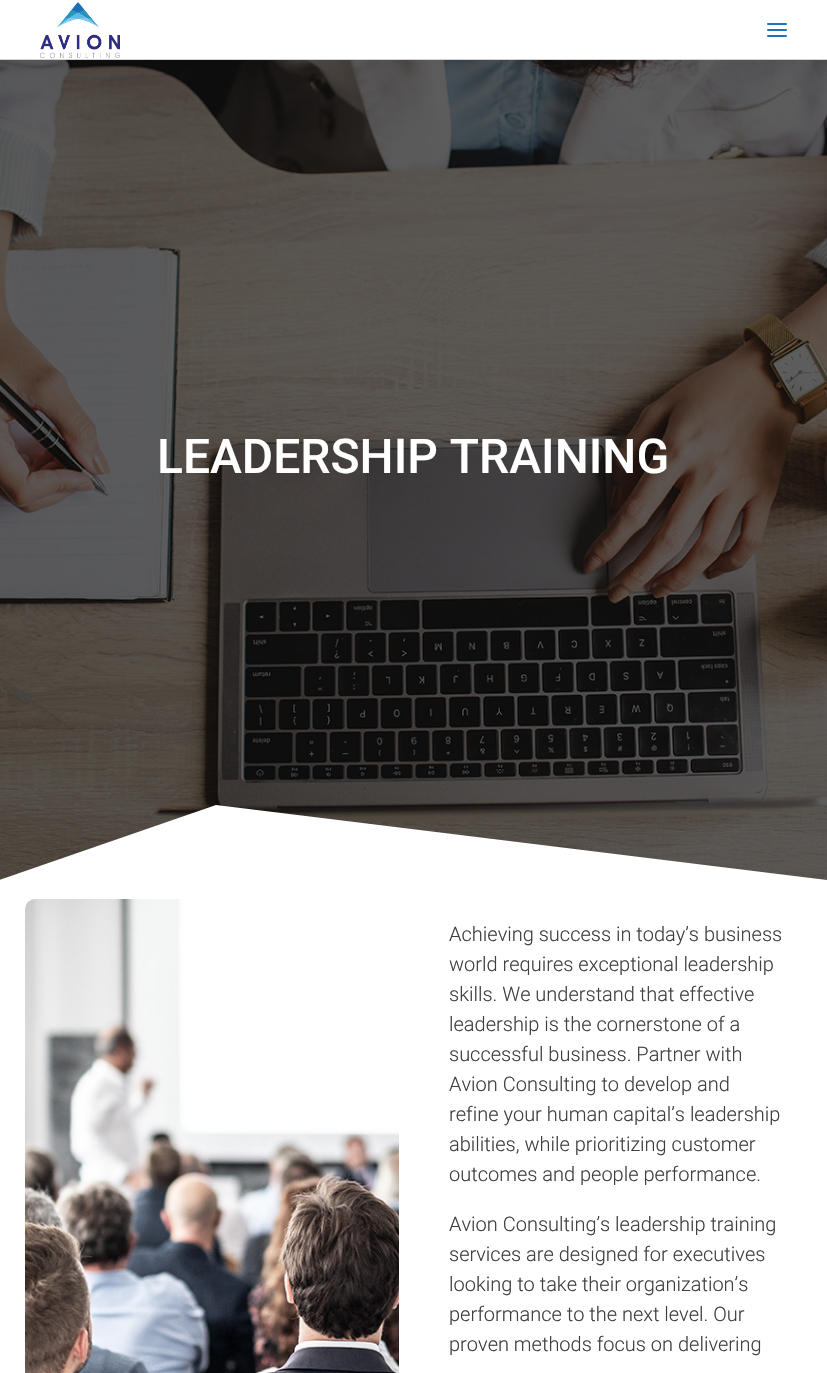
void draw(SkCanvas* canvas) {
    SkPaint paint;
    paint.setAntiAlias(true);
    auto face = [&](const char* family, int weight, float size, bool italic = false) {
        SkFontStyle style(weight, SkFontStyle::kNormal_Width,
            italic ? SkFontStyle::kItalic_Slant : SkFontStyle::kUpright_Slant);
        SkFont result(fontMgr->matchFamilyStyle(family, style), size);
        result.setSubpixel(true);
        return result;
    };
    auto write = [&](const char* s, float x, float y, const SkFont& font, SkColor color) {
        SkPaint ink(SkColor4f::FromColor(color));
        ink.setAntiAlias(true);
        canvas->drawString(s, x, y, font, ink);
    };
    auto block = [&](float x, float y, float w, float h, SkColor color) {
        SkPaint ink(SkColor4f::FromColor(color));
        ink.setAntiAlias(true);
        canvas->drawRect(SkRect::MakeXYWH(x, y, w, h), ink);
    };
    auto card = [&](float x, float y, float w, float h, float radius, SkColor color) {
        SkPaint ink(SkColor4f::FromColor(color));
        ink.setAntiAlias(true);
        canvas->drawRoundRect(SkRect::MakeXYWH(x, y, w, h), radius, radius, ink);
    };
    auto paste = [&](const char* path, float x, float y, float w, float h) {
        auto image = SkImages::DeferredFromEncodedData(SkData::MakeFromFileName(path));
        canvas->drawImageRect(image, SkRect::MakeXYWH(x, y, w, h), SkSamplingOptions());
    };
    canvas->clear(SK_ColorWHITE);
    block(0, 59, 827, 1, SkColorSetRGB(210, 210, 210));
    paste("pic1.png", 40, 2, 80, 56);
    card(767, 29, 20, 2, 1, SkColorSetRGB(30, 115, 190));
    card(767, 23, 20, 2, 1, SkColorSetRGB(30, 115, 190));
    card(767, 35, 20, 2, 1, SkColorSetRGB(30, 115, 190));
    paste("pic2.png", 0, 60, 827, 820);
    auto kFont1 = face("Roboto", 500, 48);
    write("LEADERSHIP TRAINING", 157, 473, kFont1, SK_ColorWHITE);
    canvas->save();
    canvas->clipRect(SkRect::MakeXYWH(0, 805, 827, 79));
    paint.setColor(SK_ColorWHITE);
    canvas->drawPath(SkPathBuilder().moveTo(216, 805).lineTo(-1, 880).lineTo(-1, 885).lineTo(827, 885).lineTo(827, 880).close().detach(), paint);
    canvas->restore();
    paste("pic3.png", 25, 899, 374, 474);
    auto kFont2 = face("Roboto", 300, 20);
    write("Achieving success in today’s business", 449, 941, kFont2, SkColorSetRGB(63, 63, 63));
    write("world requires exceptional leadership", 449, 971, kFont2, SkColorSetRGB(63, 63, 63));
    write("skills. We understand that effective", 449, 1001, kFont2, SkColorSetRGB(63, 63, 63));
    write("leadership is the cornerstone of a", 449, 1031, kFont2, SkColorSetRGB(63, 63, 63));
    write("successful business. Partner with", 449, 1061, kFont2, SkColorSetRGB(63, 63, 63));
    write("Avion Consulting to develop and", 449, 1091, kFont2, SkColorSetRGB(63, 63, 63));
    write("refine your human capital’s leadership", 449, 1121, kFont2, SkColorSetRGB(63, 63, 63));
    write("abilities, while prioritizing customer", 449, 1151, kFont2, SkColorSetRGB(63, 63, 63));
    write("outcomes and people performance.", 449, 1181, kFont2, SkColorSetRGB(63, 63, 63));
    write("Avion Consulting’s leadership training", 449, 1231, kFont2, SkColorSetRGB(63, 63, 63));
    write("services are designed for executives", 449, 1261, kFont2, SkColorSetRGB(63, 63, 63));
    write("looking to take their organization’s", 449, 1291, kFont2, SkColorSetRGB(63, 63, 63));
    write("performance to the next level. Our", 449, 1321, kFont2, SkColorSetRGB(63, 63, 63));
    write("proven methods focus on delivering", 449, 1351, kFont2, SkColorSetRGB(63, 63, 63));
}
